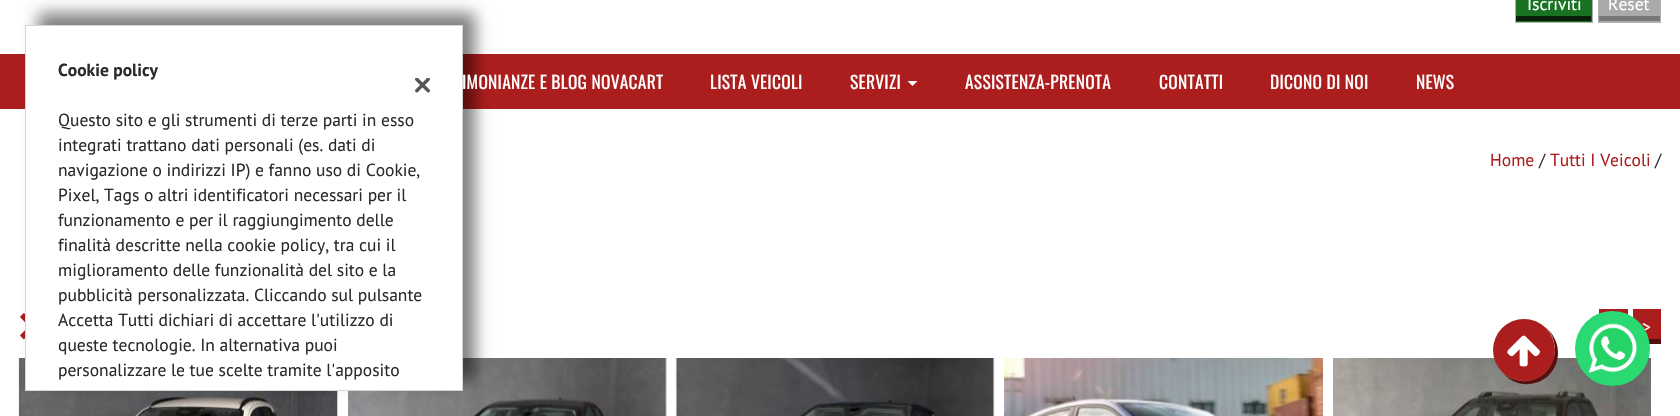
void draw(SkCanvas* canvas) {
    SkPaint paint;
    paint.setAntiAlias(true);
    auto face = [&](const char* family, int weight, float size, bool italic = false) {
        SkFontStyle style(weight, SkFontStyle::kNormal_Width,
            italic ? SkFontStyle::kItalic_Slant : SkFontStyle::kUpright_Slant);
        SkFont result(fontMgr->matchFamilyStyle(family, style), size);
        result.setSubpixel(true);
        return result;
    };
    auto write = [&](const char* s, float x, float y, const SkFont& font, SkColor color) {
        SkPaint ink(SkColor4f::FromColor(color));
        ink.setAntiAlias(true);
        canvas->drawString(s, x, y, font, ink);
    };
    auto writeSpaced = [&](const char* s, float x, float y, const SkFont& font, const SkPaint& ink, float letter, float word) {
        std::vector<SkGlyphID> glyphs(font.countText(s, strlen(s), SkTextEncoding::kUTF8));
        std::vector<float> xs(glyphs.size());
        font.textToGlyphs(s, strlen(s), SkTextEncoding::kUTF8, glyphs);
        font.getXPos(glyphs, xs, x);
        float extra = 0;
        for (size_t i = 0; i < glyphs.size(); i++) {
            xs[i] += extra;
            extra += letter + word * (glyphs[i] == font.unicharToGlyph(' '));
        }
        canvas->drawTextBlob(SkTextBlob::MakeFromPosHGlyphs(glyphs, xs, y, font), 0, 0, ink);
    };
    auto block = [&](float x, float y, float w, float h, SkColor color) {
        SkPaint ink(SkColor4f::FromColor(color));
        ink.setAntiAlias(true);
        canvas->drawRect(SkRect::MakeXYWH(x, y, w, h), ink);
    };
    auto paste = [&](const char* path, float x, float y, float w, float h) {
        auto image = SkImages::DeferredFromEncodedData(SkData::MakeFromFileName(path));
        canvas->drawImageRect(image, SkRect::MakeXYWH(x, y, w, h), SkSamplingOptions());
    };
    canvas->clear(SK_ColorWHITE);
    block(0, 54, 1680, 55, SkColorSetRGB(172, 30, 29));
    paste("pic2.png", 20, 313, 5, 27);
    block(337, 391, 1, 25, SkColorSetRGB(246, 246, 246));
    paste("pic3.png", 18, 358, 320, 58);
    paste("pic4.png", 348, 358, 319, 58);
    paint.setColor(SkColorSetARGB(128, 0, 0, 0));
    paint.setMaskFilter(SkMaskFilter::MakeBlur(kNormal_SkBlurStyle, 7.5f));
    canvas->drawRect(SkRect::MakeXYWH(38, 13, 437, 366), paint);
    paint.setMaskFilter(nullptr);
    paint.setColor(SK_ColorWHITE);
    canvas->drawRect(SkRect::MakeXYWH(25.5f, 25.5f, 437, 365), paint);
    paint.setStyle(SkPaint::kStroke_Style);
    paint.setStrokeWidth(1);
    paint.setColor(SkColorSetRGB(214, 214, 214));
    canvas->drawRect(SkRect::MakeXYWH(25.5f, 25.5f, 437, 365), paint);
    auto kFont1 = face("PT Sans", 700, 17.5f);
    write("Cookie policy", 58, 76, kFont1, SkColorSetRGB(43, 41, 41));
    auto kFont2 = face("PT Sans", 400, 17.5f);
    write("Questo sito e gli strumenti di terze parti in esso", 58, 126, kFont2, SkColorSetRGB(43, 41, 41));
    write("integrati trattano dati personali (es. dati di", 58, 151, kFont2, SkColorSetRGB(43, 41, 41));
    write("navigazione o indirizzi IP) e fanno uso di Cookie,", 58, 176, kFont2, SkColorSetRGB(43, 41, 41));
    write("Pixel, Tags o altri identificatori necessari per il", 58, 201, kFont2, SkColorSetRGB(43, 41, 41));
    write("funzionamento e per il raggiungimento delle", 58, 226, kFont2, SkColorSetRGB(43, 41, 41));
    write("finalità descritte nella cookie policy, tra cui il", 58, 251, kFont2, SkColorSetRGB(43, 41, 41));
    write("miglioramento delle funzionalità del sito e la", 58, 276, kFont2, SkColorSetRGB(43, 41, 41));
    write("pubblicità personalizzata. Cliccando sul pulsante", 58, 301, kFont2, SkColorSetRGB(43, 41, 41));
    write("Accetta Tutti dichiari di accettare l'utilizzo di", 58, 326, kFont2, SkColorSetRGB(43, 41, 41));
    write("queste tecnologie. In alternativa puoi", 58, 351, kFont2, SkColorSetRGB(43, 41, 41));
    write("personalizzare le tue scelte tramite l'apposito", 58, 376, kFont2, SkColorSetRGB(43, 41, 41));
    paste("pic1.png", 415, 78, 15, 15);
    block(1516, 0, 76, 22, SkColorSetRGB(26, 115, 35));
    block(1516, 16, 75, 5, SkColorSetRGB(7, 32, 10));
    paint.setColor(SkColorSetRGB(176, 176, 176));
    canvas->drawRect(SkRect::MakeXYWH(1515.5f, -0.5f, 77, 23), paint);
    write("Iscriviti", 1527, 10, kFont2, SK_ColorWHITE);
    block(1599, 0, 61, 22, SkColorSetRGB(170, 170, 170));
    block(1599, 16, 61, 5, SkColorSetRGB(119, 119, 119));
    canvas->drawRect(SkRect::MakeXYWH(1598.5f, -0.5f, 62, 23), paint);
    write("Reset", 1608, 10, kFont2, SK_ColorWHITE);
    auto kFont3 = face("Oswald", 400, 17.5f);
    paint.setStyle(SkPaint::kFill_Style);
    paint.setColor(SK_ColorWHITE);
    writeSpaced("IMONIANZE E BLOG NOVACART", 462, 89, kFont3, paint, 0.25f, 0);
    writeSpaced("LISTA VEICOLI", 710, 89, kFont3, paint, 0.25f, 0);
    writeSpaced("SERVIZI", 850, 89, kFont3, paint, 0.25f, 0);
    canvas->drawPath(SkPathBuilder().moveTo(907.5f, 81).lineTo(917.5f, 81).lineTo(912.5f, 86).close().detach(), paint);
    writeSpaced("ASSISTENZA-PRENOTA", 965, 89, kFont3, paint, 0.25f, 0);
    writeSpaced("CONTATTI", 1159, 89, kFont3, paint, 0.25f, 0);
    writeSpaced("DICONO DI NOI", 1270, 89, kFont3, paint, 0.25f, 0);
    writeSpaced("NEWS", 1416, 89, kFont3, paint, 0.25f, 0);
    write("Home", 1490, 166, kFont2, SkColorSetRGB(172, 30, 29));
    write("/", 1539, 166, kFont2, SkColorSetRGB(51, 51, 51));
    write("Tutti I Veicoli", 1550, 166, kFont2, SkColorSetRGB(172, 30, 29));
    write("/", 1655, 166, kFont2, SkColorSetRGB(51, 51, 51));
    block(1599, 309, 29, 6, SkColorSetRGB(172, 30, 29));
    block(1633, 309, 28, 30, SkColorSetRGB(172, 30, 29));
    block(1648, 339, 13, 5, SkColorSetRGB(85, 15, 14));
    write(">", 1642, 333, kFont2, SK_ColorWHITE);
    block(676, 358, 318, 58, SkColorSetRGB(246, 246, 246));
    paste("pic5.png", 675, 358, 320, 58);
    paste("pic6.png", 1004, 358, 319, 58);
    paste("pic7.png", 1333, 358, 318, 58);
    paint.setColor(SkColorSetRGB(85, 15, 14));
    canvas->drawPath(SkPathBuilder().moveTo(1503, 373).cubicTo(1514, 387, 1536, 388, 1549, 375).cubicTo(1563, 361, 1560, 338, 1545, 327).cubicTo(1558, 338, 1558, 359, 1546, 372).cubicTo(1534, 384, 1515, 384, 1503, 373).close().detach(), paint);
    paint.setColor(SkColorSetRGB(172, 30, 29));
    canvas->drawCircle(1524, 350, 31, paint);
    paste("pic8.png", 1507, 335, 33, 32);
    paint.setColor(SkColorSetRGB(42, 217, 113));
    canvas->drawCircle(1612.5f, 348.5f, 37.5f, paint);
    paste("pic9.png", 1588, 323, 49, 50);
}
